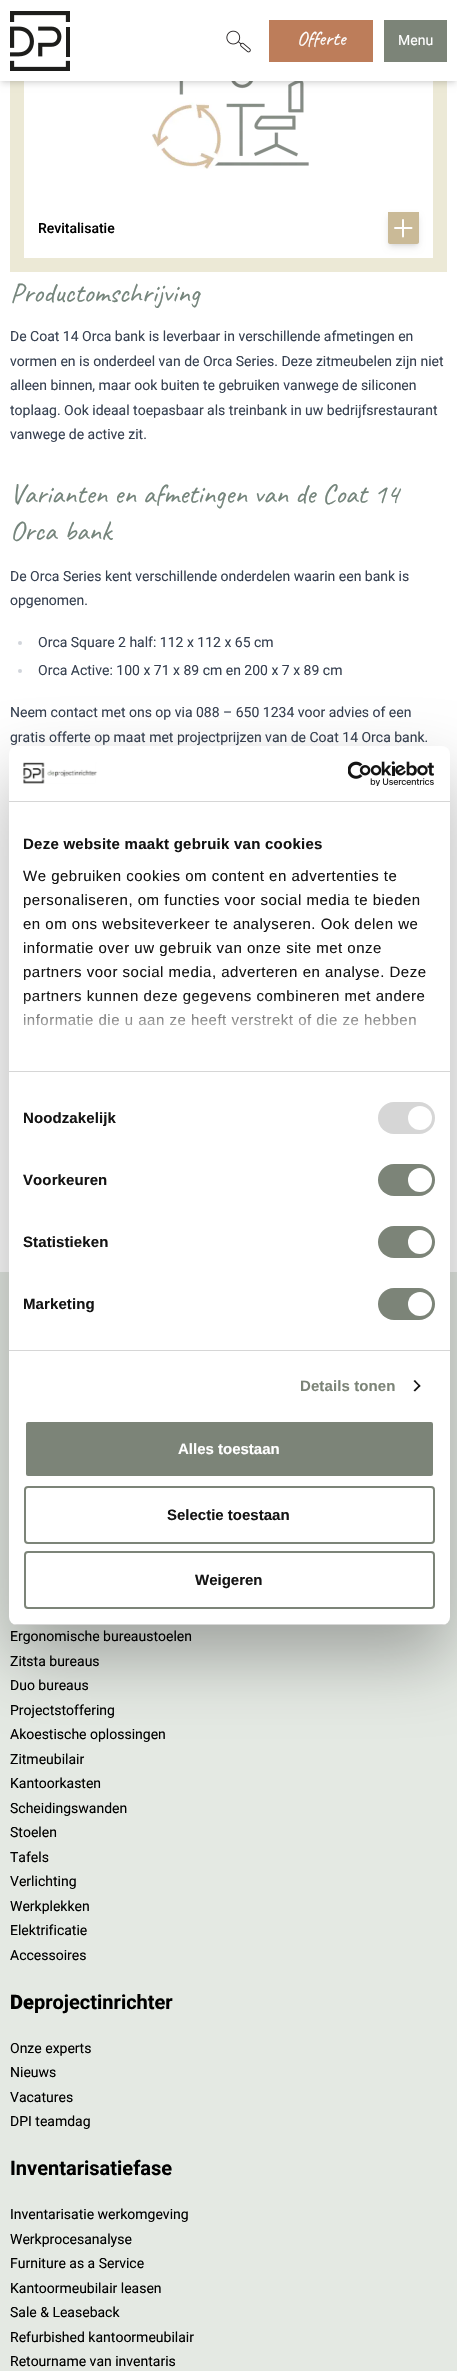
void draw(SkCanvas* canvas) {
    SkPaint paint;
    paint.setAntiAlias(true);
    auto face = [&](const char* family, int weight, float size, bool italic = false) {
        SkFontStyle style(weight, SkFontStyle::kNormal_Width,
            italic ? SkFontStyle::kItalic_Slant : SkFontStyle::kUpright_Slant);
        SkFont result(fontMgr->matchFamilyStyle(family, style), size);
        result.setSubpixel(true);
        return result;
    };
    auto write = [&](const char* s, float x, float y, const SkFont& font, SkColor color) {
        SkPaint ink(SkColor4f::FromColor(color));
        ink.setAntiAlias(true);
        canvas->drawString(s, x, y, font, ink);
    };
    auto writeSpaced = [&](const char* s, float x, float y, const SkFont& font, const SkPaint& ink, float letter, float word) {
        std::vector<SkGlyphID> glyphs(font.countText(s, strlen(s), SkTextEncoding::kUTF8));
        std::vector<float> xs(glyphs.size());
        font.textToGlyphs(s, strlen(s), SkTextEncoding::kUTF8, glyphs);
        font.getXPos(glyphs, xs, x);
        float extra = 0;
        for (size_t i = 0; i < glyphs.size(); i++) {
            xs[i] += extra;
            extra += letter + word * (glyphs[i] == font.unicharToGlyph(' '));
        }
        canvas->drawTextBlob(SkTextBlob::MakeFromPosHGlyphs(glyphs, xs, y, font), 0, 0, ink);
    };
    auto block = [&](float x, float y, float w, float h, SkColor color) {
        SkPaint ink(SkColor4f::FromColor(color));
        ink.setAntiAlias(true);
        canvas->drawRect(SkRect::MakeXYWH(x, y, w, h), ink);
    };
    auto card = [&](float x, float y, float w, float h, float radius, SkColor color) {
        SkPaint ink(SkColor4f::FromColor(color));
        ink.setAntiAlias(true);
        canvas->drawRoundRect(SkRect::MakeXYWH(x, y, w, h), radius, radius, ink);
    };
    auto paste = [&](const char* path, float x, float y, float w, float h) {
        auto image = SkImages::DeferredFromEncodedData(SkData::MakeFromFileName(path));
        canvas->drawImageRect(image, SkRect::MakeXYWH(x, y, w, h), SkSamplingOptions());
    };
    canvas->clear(SK_ColorWHITE);
    block(10, 81, 437, 191, SkColorSetRGB(236, 233, 214));
    block(24, 81, 409, 177, SK_ColorWHITE);
    paste("pic3.png", 152, 81, 157, 88);
    paint.setColor(SkColorSetARGB(26, 0, 0, 0));
    paint.setMaskFilter(SkMaskFilter::MakeBlur(kNormal_SkBlurStyle, 2));
    canvas->drawRect(SkRect::MakeXYWH(2, 4, 453, 77), paint);
    paint.setMaskFilter(nullptr);
    paint.setMaskFilter(SkMaskFilter::MakeBlur(kNormal_SkBlurStyle, 3));
    canvas->drawRect(SkRect::MakeXYWH(1, 5, 455, 79), paint);
    paint.setMaskFilter(nullptr);
    block(0, 0, 457, 81, SK_ColorWHITE);
    paste("pic1.png", 10, 11, 60, 60);
    paste("pic2.png", 226, 30, 25, 23);
    block(269, 20, 104, 42, SkColorSetRGB(189, 125, 90));
    auto kFont1 = face("Caveat", 400, 20);
    write("Offerte", 297, 45, kFont1, SK_ColorWHITE);
    block(384, 20, 63, 42, SkColorSetRGB(124, 132, 120));
    auto kFont2 = face("Roboto", 400, 14);
    write("Menu", 398, 45, kFont2, SK_ColorWHITE);
    auto kFont3 = face("Roboto", 500, 14);
    write("Revitalisatie", 38, 233, kFont3, SK_ColorBLACK);
    paint.setMaskFilter(SkMaskFilter::MakeBlur(kNormal_SkBlurStyle, 2));
    canvas->drawRect(SkRect::MakeXYWH(390, 216, 27, 28), paint);
    paint.setMaskFilter(nullptr);
    paint.setMaskFilter(SkMaskFilter::MakeBlur(kNormal_SkBlurStyle, 3));
    canvas->drawRoundRect(SkRect::MakeXYWH(389, 217, 29, 30), 1, 1, paint);
    paint.setMaskFilter(nullptr);
    paint.setColor(SkColorSetRGB(202, 186, 151));
    canvas->drawPath(SkPathBuilder().moveTo(388, 212).lineTo(419, 212).lineTo(419, 242).cubicTo(419, 243, 418, 244, 417, 244).lineTo(390, 244).cubicTo(389, 244, 388, 243, 388, 242).close().detach(), paint);
    paint.setStyle(SkPaint::kStroke_Style);
    paint.setStrokeWidth(2);
    paint.setStrokeCap(SkPaint::kRound_Cap);
    paint.setStrokeJoin(SkPaint::kRound_Join);
    paint.setColor(SK_ColorWHITE);
    canvas->drawPath(SkPathBuilder().moveTo(403, 220).lineTo(403, 236.5f).moveTo(411.5f, 228).lineTo(395, 228).detach(), paint);
    auto kFont4 = face("Caveat", 400, 28);
    write("Productomschrijving", 10, 302, kFont4, SkColorSetRGB(117, 133, 124));
    write("De Coat 14 Orca bank is leverbaar in verschillende afmetingen en", 10, 341, kFont2, SkColorSetRGB(55, 65, 81));
    write("vormen en is onderdeel van de Orca Series. Deze zitmeubelen zijn niet", 10, 366, kFont2, SkColorSetRGB(55, 65, 81));
    write("alleen binnen, maar ook buiten te gebruiken vanwege de siliconen", 10, 390, kFont2, SkColorSetRGB(55, 65, 81));
    write("toplaag. Ook ideaal toepasbaar als treinbank in uw bedrijfsrestaurant", 10, 415, kFont2, SkColorSetRGB(55, 65, 81));
    write("vanwege de active zit.", 10, 439, kFont2, SkColorSetRGB(55, 65, 81));
    paint.setStyle(SkPaint::kFill_Style);
    paint.setColor(SkColorSetRGB(117, 133, 124));
    writeSpaced("Varianten en afmetingen van de Coat 14", 10, 503, kFont4, paint, 0, 0.25f);
    writeSpaced("Orca bank", 10, 540, kFont4, paint, 0, 1);
    write("De Orca Series kent verschillende onderdelen waarin een bank is", 10, 581, kFont2, SkColorSetRGB(55, 65, 81));
    write("opgenomen.", 10, 605, kFont2, SkColorSetRGB(55, 65, 81));
    paint.setColor(SkColorSetRGB(209, 213, 219));
    canvas->drawCircle(20, 643, 2, paint);
    write("Orca Square 2 half: 112 x 112 x 65 cm", 38, 647, kFont2, SkColorSetRGB(55, 65, 81));
    canvas->drawCircle(20, 671, 2, paint);
    write("Orca Active: 100 x 71 x 89 cm en 200 x 7 x 89 cm", 38, 675, kFont2, SkColorSetRGB(55, 65, 81));
    write("Neem contact met ons op via 088 – 650 1234 voor advies of een", 10, 717, kFont2, SkColorSetRGB(55, 65, 81));
    write("gratis offerte op maat met projectprijzen van de Coat 14 Orca bank.", 10, 742, kFont2, SkColorSetRGB(55, 65, 81));
    block(0, 1272, 457, 1099, SkColorSetRGB(228, 233, 227));
    paint.setColor(SkColorSetARGB(77, 0, 0, 0));
    paint.setMaskFilter(SkMaskFilter::MakeBlur(kNormal_SkBlurStyle, 34));
    canvas->drawRoundRect(SkRect::MakeXYWH(9, 778, 441, 879), 8, 8, paint);
    paint.setMaskFilter(nullptr);
    card(9, 746, 441, 879, 8, SK_ColorWHITE);
    block(9, 801, 441, 1, SkColorSetRGB(214, 214, 214));
    paste("pic4.png", 23, 762, 75, 22);
    paste("pic5.png", 348, 761, 86, 25);
    block(9, 1071, 441, 1, SkColorSetRGB(214, 214, 214));
    auto kFont5 = face("Liberation Sans", 700, 15);
    paint.setColor(SkColorSetRGB(20, 20, 20));
    writeSpaced("Deze website maakt gebruik van cookies", 23, 849, kFont5, paint, 0.25f, 0);
    auto kFont6 = face("Liberation Sans", 400, 15);
    writeSpaced("We gebruiken cookies om content en advertenties te", 23, 881, kFont6, paint, 0.5f, 0);
    writeSpaced("personaliseren, om functies voor social media te bieden", 23, 905, kFont6, paint, 0.5f, 0);
    writeSpaced("en om ons websiteverkeer te analyseren. Ook delen we", 23, 929, kFont6, paint, 0.5f, 0);
    writeSpaced("informatie over uw gebruik van onze site met onze", 23, 953, kFont6, paint, 0.5f, 0);
    writeSpaced("partners voor social media, adverteren en analyse. Deze", 23, 977, kFont6, paint, 0.5f, 0);
    writeSpaced("partners kunnen deze gegevens combineren met andere", 23, 1001, kFont6, paint, 0.5f, 0);
    writeSpaced("informatie die u aan ze heeft verstrekt of die ze hebben", 23, 1025, kFont6, paint, 0.5f, 0);
    {
        const SkColor colors[] = {SK_ColorWHITE, SkColorSetARGB(204, 255, 255, 255), SkColorSetARGB(0, 255, 255, 255)};
        const float stops[] = {0, 0.5f, 1};
        const SkPoint ends[] = {{223, 1071}, {223, 996}};
        paint.setShader(SkGradientShader::MakeLinear(ends, colors, stops, 3, SkTileMode::kClamp));
        paint.setAlpha(255);
    }
    canvas->drawRect(SkRect::MakeXYWH(24, 997, 400, 29), paint);
    block(9, 1350, 441, 1, SkColorSetRGB(214, 214, 214));
    paint.setShader(nullptr);
    paint.setColor(SkColorSetRGB(20, 20, 20));
    writeSpaced("Noodzakelijk", 23, 1123, kFont5, paint, 0.1f, 0);
    card(378, 1102, 57, 32, 16, SkColorSetRGB(214, 214, 214));
    paint.setColor(SK_ColorWHITE);
    canvas->drawCircle(420, 1118, 12, paint);
    paint.setColor(SkColorSetRGB(20, 20, 20));
    writeSpaced("Voorkeuren", 23, 1185, kFont5, paint, 0.1f, 0);
    card(378, 1164, 57, 32, 16, SkColorSetRGB(124, 132, 120));
    paint.setColor(SK_ColorWHITE);
    canvas->drawCircle(420, 1180, 12, paint);
    paint.setColor(SkColorSetRGB(20, 20, 20));
    writeSpaced("Statistieken", 23, 1247, kFont5, paint, 0.1f, 0);
    card(378, 1226, 57, 32, 16, SkColorSetRGB(124, 132, 120));
    paint.setColor(SK_ColorWHITE);
    canvas->drawCircle(420, 1242, 12, paint);
    paint.setColor(SkColorSetRGB(20, 20, 20));
    writeSpaced("Marketing", 23, 1309, kFont5, paint, 0.1f, 0);
    card(378, 1288, 57, 32, 16, SkColorSetRGB(124, 132, 120));
    paint.setColor(SK_ColorWHITE);
    canvas->drawCircle(420, 1304, 12, paint);
    paint.setColor(SkColorSetRGB(124, 132, 120));
    writeSpaced("Details tonen", 300, 1391, kFont5, paint, 0.1f, 0);
    paint.setColor(SkColorSetRGB(20, 20, 20));
    canvas->drawPath(SkPathBuilder().moveTo(415, 1380).lineTo(420.5f, 1386).lineTo(419.5f, 1387).lineTo(413.5f, 1381).close().detach(), paint);
    canvas->drawPath(SkPathBuilder().moveTo(419.5f, 1384.5f).lineTo(420.5f, 1386).lineTo(415, 1391.5f).lineTo(413.5f, 1390.5f).close().detach(), paint);
    canvas->save();
    canvas->clipPath(SkPathBuilder().moveTo(17, 746).lineTo(442, 746).cubicTo(446.5f, 746, 450, 749.5f, 450, 754).lineTo(450, 1617).cubicTo(450, 1621.5f, 446.5f, 1625, 442, 1625).lineTo(17, 1625).cubicTo(12.5f, 1625, 9, 1621.5f, 9, 1617).lineTo(9, 754).cubicTo(9, 749.5f, 12.5f, 746, 17, 746).close().detach(), true);
    block(9, 1624, 441, 1, SkColorSetRGB(214, 214, 214));
    canvas->restore();
    paint.setColor(SkColorSetRGB(124, 132, 120));
    canvas->drawRoundRect(SkRect::MakeXYWH(25, 1421, 409, 56), 3, 3, paint);
    paint.setStyle(SkPaint::kStroke_Style);
    paint.setStrokeCap(SkPaint::kButt_Cap);
    paint.setStrokeJoin(SkPaint::kMiter_Join);
    paint.setColor(SK_ColorWHITE);
    canvas->drawRoundRect(SkRect::MakeXYWH(25, 1421, 409, 56), 3, 3, paint);
    write("Alles toestaan", 178, 1454, kFont5, SK_ColorWHITE);
    paint.setColor(SkColorSetRGB(124, 132, 120));
    canvas->drawRoundRect(SkRect::MakeXYWH(25, 1487, 409, 56), 3, 3, paint);
    write("Selectie toestaan", 167, 1520, kFont5, SkColorSetRGB(20, 20, 20));
    canvas->drawRoundRect(SkRect::MakeXYWH(25, 1552, 409, 56), 3, 3, paint);
    write("Weigeren", 195, 1585, kFont5, SkColorSetRGB(20, 20, 20));
    write("Ergonomische bureaustoelen", 10, 1641, kFont2, SK_ColorBLACK);
    write("Zitsta bureaus", 10, 1666, kFont2, SK_ColorBLACK);
    write("Duo bureaus", 10, 1690, kFont2, SK_ColorBLACK);
    write("Projectstoffering", 10, 1715, kFont2, SK_ColorBLACK);
    write("Akoestische oplossingen", 10, 1739, kFont2, SK_ColorBLACK);
    write("Zitmeubilair", 10, 1764, kFont2, SK_ColorBLACK);
    write("Kantoorkasten", 10, 1788, kFont2, SK_ColorBLACK);
    write("Scheidingswanden", 10, 1813, kFont2, SK_ColorBLACK);
    write("Stoelen", 10, 1837, kFont2, SK_ColorBLACK);
    write("Tafels", 10, 1862, kFont2, SK_ColorBLACK);
    write("Verlichting", 10, 1886, kFont2, SK_ColorBLACK);
    write("Werkplekken", 10, 1911, kFont2, SK_ColorBLACK);
    write("Elektrificatie", 10, 1935, kFont2, SK_ColorBLACK);
    write("Accessoires", 10, 1960, kFont2, SK_ColorBLACK);
    auto kFont7 = face("Roboto", 900, 20);
    write("De", 10, 2009, kFont7, SK_ColorBLACK);
    auto kFont8 = face("Roboto", 700, 20);
    write("projectinrichter", 34, 2009, kFont8, SK_ColorBLACK);
    write("Onze experts", 10, 2053, kFont2, SK_ColorBLACK);
    write("Nieuws", 10, 2077, kFont2, SK_ColorBLACK);
    write("Vacatures", 10, 2102, kFont2, SK_ColorBLACK);
    write("DPI teamdag", 10, 2126, kFont2, SK_ColorBLACK);
    write("Inventarisatiefase", 10, 2175, kFont8, SK_ColorBLACK);
    write("Inventarisatie werkomgeving", 10, 2219, kFont2, SK_ColorBLACK);
    write("Werkprocesanalyse", 10, 2244, kFont2, SK_ColorBLACK);
    write("Furniture as a Service", 10, 2268, kFont2, SK_ColorBLACK);
    write("Kantoormeubilair leasen", 10, 2293, kFont2, SK_ColorBLACK);
    write("Sale & Leaseback", 10, 2317, kFont2, SK_ColorBLACK);
    write("Refurbished kantoormeubilair", 10, 2342, kFont2, SK_ColorBLACK);
    write("Retourname van inventaris", 10, 2366, kFont2, SK_ColorBLACK);
}
